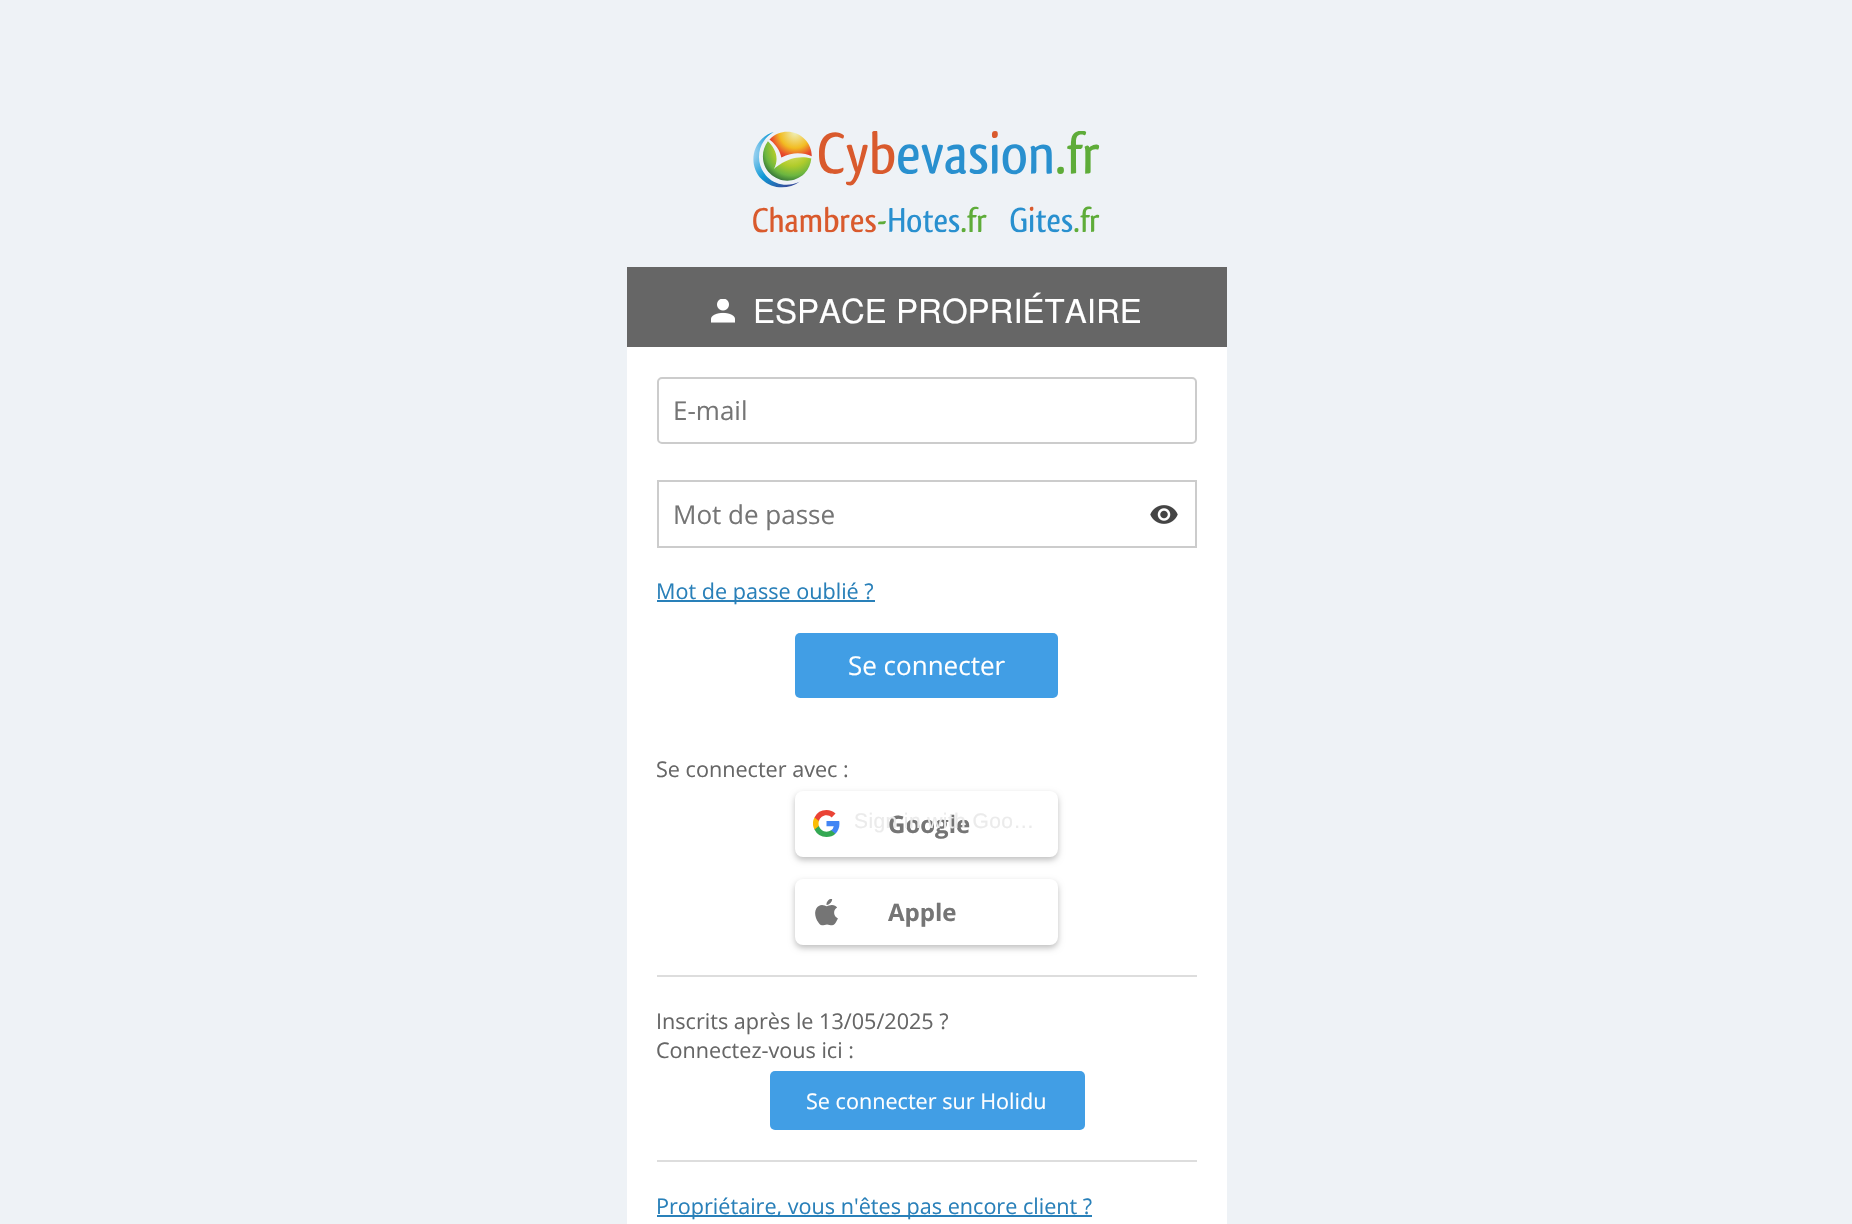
void draw(SkCanvas* canvas) {
    SkPaint paint;
    paint.setAntiAlias(true);
    auto face = [&](const char* family, int weight, float size, bool italic = false) {
        SkFontStyle style(weight, SkFontStyle::kNormal_Width,
            italic ? SkFontStyle::kItalic_Slant : SkFontStyle::kUpright_Slant);
        SkFont result(fontMgr->matchFamilyStyle(family, style), size);
        result.setSubpixel(true);
        return result;
    };
    auto write = [&](const char* s, float x, float y, const SkFont& font, SkColor color) {
        SkPaint ink(SkColor4f::FromColor(color));
        ink.setAntiAlias(true);
        canvas->drawString(s, x, y, font, ink);
    };
    auto writeSpaced = [&](const char* s, float x, float y, const SkFont& font, const SkPaint& ink, float letter, float word) {
        std::vector<SkGlyphID> glyphs(font.countText(s, strlen(s), SkTextEncoding::kUTF8));
        std::vector<float> xs(glyphs.size());
        font.textToGlyphs(s, strlen(s), SkTextEncoding::kUTF8, glyphs);
        font.getXPos(glyphs, xs, x);
        float extra = 0;
        for (size_t i = 0; i < glyphs.size(); i++) {
            xs[i] += extra;
            extra += letter + word * (glyphs[i] == font.unicharToGlyph(' '));
        }
        canvas->drawTextBlob(SkTextBlob::MakeFromPosHGlyphs(glyphs, xs, y, font), 0, 0, ink);
    };
    auto block = [&](float x, float y, float w, float h, SkColor color) {
        SkPaint ink(SkColor4f::FromColor(color));
        ink.setAntiAlias(true);
        canvas->drawRect(SkRect::MakeXYWH(x, y, w, h), ink);
    };
    auto card = [&](float x, float y, float w, float h, float radius, SkColor color) {
        SkPaint ink(SkColor4f::FromColor(color));
        ink.setAntiAlias(true);
        canvas->drawRoundRect(SkRect::MakeXYWH(x, y, w, h), radius, radius, ink);
    };
    auto paste = [&](const char* path, float x, float y, float w, float h) {
        auto image = SkImages::DeferredFromEncodedData(SkData::MakeFromFileName(path));
        canvas->drawImageRect(image, SkRect::MakeXYWH(x, y, w, h), SkSamplingOptions());
    };
    canvas->clear(SkColorSetRGB(238, 242, 246));
    paste("pic1.png", 753, 131, 347, 102);
    block(627, 267, 600, 80, SkColorSetRGB(102, 102, 102));
    paste("pic2.png", 711, 299, 24, 24);
    auto kFont1 = face("TeX Gyre Heros", 400, 33);
    write("ESPACE PROPRIÉTAIRE", 753, 323, kFont1, SK_ColorWHITE);
    block(627, 347, 600, 877, SK_ColorWHITE);
    paint.setStyle(SkPaint::kStroke_Style);
    paint.setStrokeWidth(2);
    paint.setColor(SkColorSetRGB(204, 204, 204));
    canvas->drawRoundRect(SkRect::MakeXYWH(658, 378, 538, 65), 4, 4, paint);
    auto kFont2 = face("Open Sans", 400, 26);
    write("E-mail", 673, 420, kFont2, SkColorSetRGB(117, 117, 117));
    canvas->drawRect(SkRect::MakeXYWH(658, 481, 538, 66), paint);
    write("Mot de passe", 673, 524, kFont2, SkColorSetRGB(117, 117, 117));
    paste("pic3.png", 1150, 505, 28, 19);
    block(657, 600, 218, 2, SkColorSetRGB(41, 128, 185));
    auto kFont3 = face("Open Sans", 400, 21.6f);
    write("Mot de passe oublié ?", 656, 599, kFont3, SkColorSetRGB(41, 128, 185));
    card(795, 633, 263, 65, 5, SkColorSetRGB(65, 158, 229));
    write("Se connecter", 848, 675, kFont2, SK_ColorWHITE);
    write("Se connecter avec :", 656, 777, kFont3, SkColorSetRGB(102, 102, 102));
    paint.setStyle(SkPaint::kFill_Style);
    paint.setColor(SkColorSetARGB(64, 0, 0, 0));
    paint.setMaskFilter(SkMaskFilter::MakeBlur(kNormal_SkBlurStyle, 3));
    canvas->drawRoundRect(SkRect::MakeXYWH(795, 794, 263, 66), 8, 8, paint);
    paint.setMaskFilter(nullptr);
    paint.setColor(SK_ColorWHITE);
    canvas->drawRoundRect(SkRect::MakeXYWH(796.5f, 792.5f, 260, 63), 6.5f, 6.5f, paint);
    paint.setStyle(SkPaint::kStroke_Style);
    paint.setStrokeWidth(3);
    canvas->drawRoundRect(SkRect::MakeXYWH(796.5f, 792.5f, 260, 63), 6.5f, 6.5f, paint);
    auto kFont4 = face("Open Sans", 700, 24);
    write("Google", 888, 833, kFont4, SkColorSetRGB(117, 117, 117));
    auto kFont5 = face("Liberation Sans", 400, 21);
    paint.setStyle(SkPaint::kFill_Style);
    paint.setColor(SkColorSetRGB(235, 235, 235));
    writeSpaced("Sign in with Goo…", 854, 828, kFont5, paint, 0.4f, 0);
    paste("pic4.png", 813, 810, 27, 27);
    paint.setColor(SkColorSetARGB(64, 0, 0, 0));
    paint.setMaskFilter(SkMaskFilter::MakeBlur(kNormal_SkBlurStyle, 3));
    canvas->drawRoundRect(SkRect::MakeXYWH(795, 882, 263, 66), 8, 8, paint);
    paint.setMaskFilter(nullptr);
    paint.setColor(SK_ColorWHITE);
    canvas->drawRoundRect(SkRect::MakeXYWH(796.5f, 880.5f, 260, 63), 6.5f, 6.5f, paint);
    paint.setStyle(SkPaint::kStroke_Style);
    canvas->drawRoundRect(SkRect::MakeXYWH(796.5f, 880.5f, 260, 63), 6.5f, 6.5f, paint);
    paste("pic5.png", 815, 899, 23, 27);
    write("Apple", 888, 921, kFont4, SkColorSetRGB(117, 117, 117));
    block(657, 975, 540, 2, SkColorSetRGB(221, 221, 221));
    write("Inscrits après le 13/05/2025 ?", 656, 1029, kFont3, SkColorSetRGB(102, 102, 102));
    write("Connectez-vous ici :", 656, 1058, kFont3, SkColorSetRGB(102, 102, 102));
    card(770, 1071, 315, 59, 5, SkColorSetRGB(65, 158, 229));
    write("Se connecter sur Holidu", 806, 1109, kFont3, SK_ColorWHITE);
    block(657, 1160, 540, 2, SkColorSetRGB(221, 221, 221));
    block(657, 1215, 435, 2, SkColorSetRGB(41, 128, 185));
    write("Propriétaire, vous n'êtes pas encore client ?", 656, 1214, kFont3, SkColorSetRGB(41, 128, 185));
}
